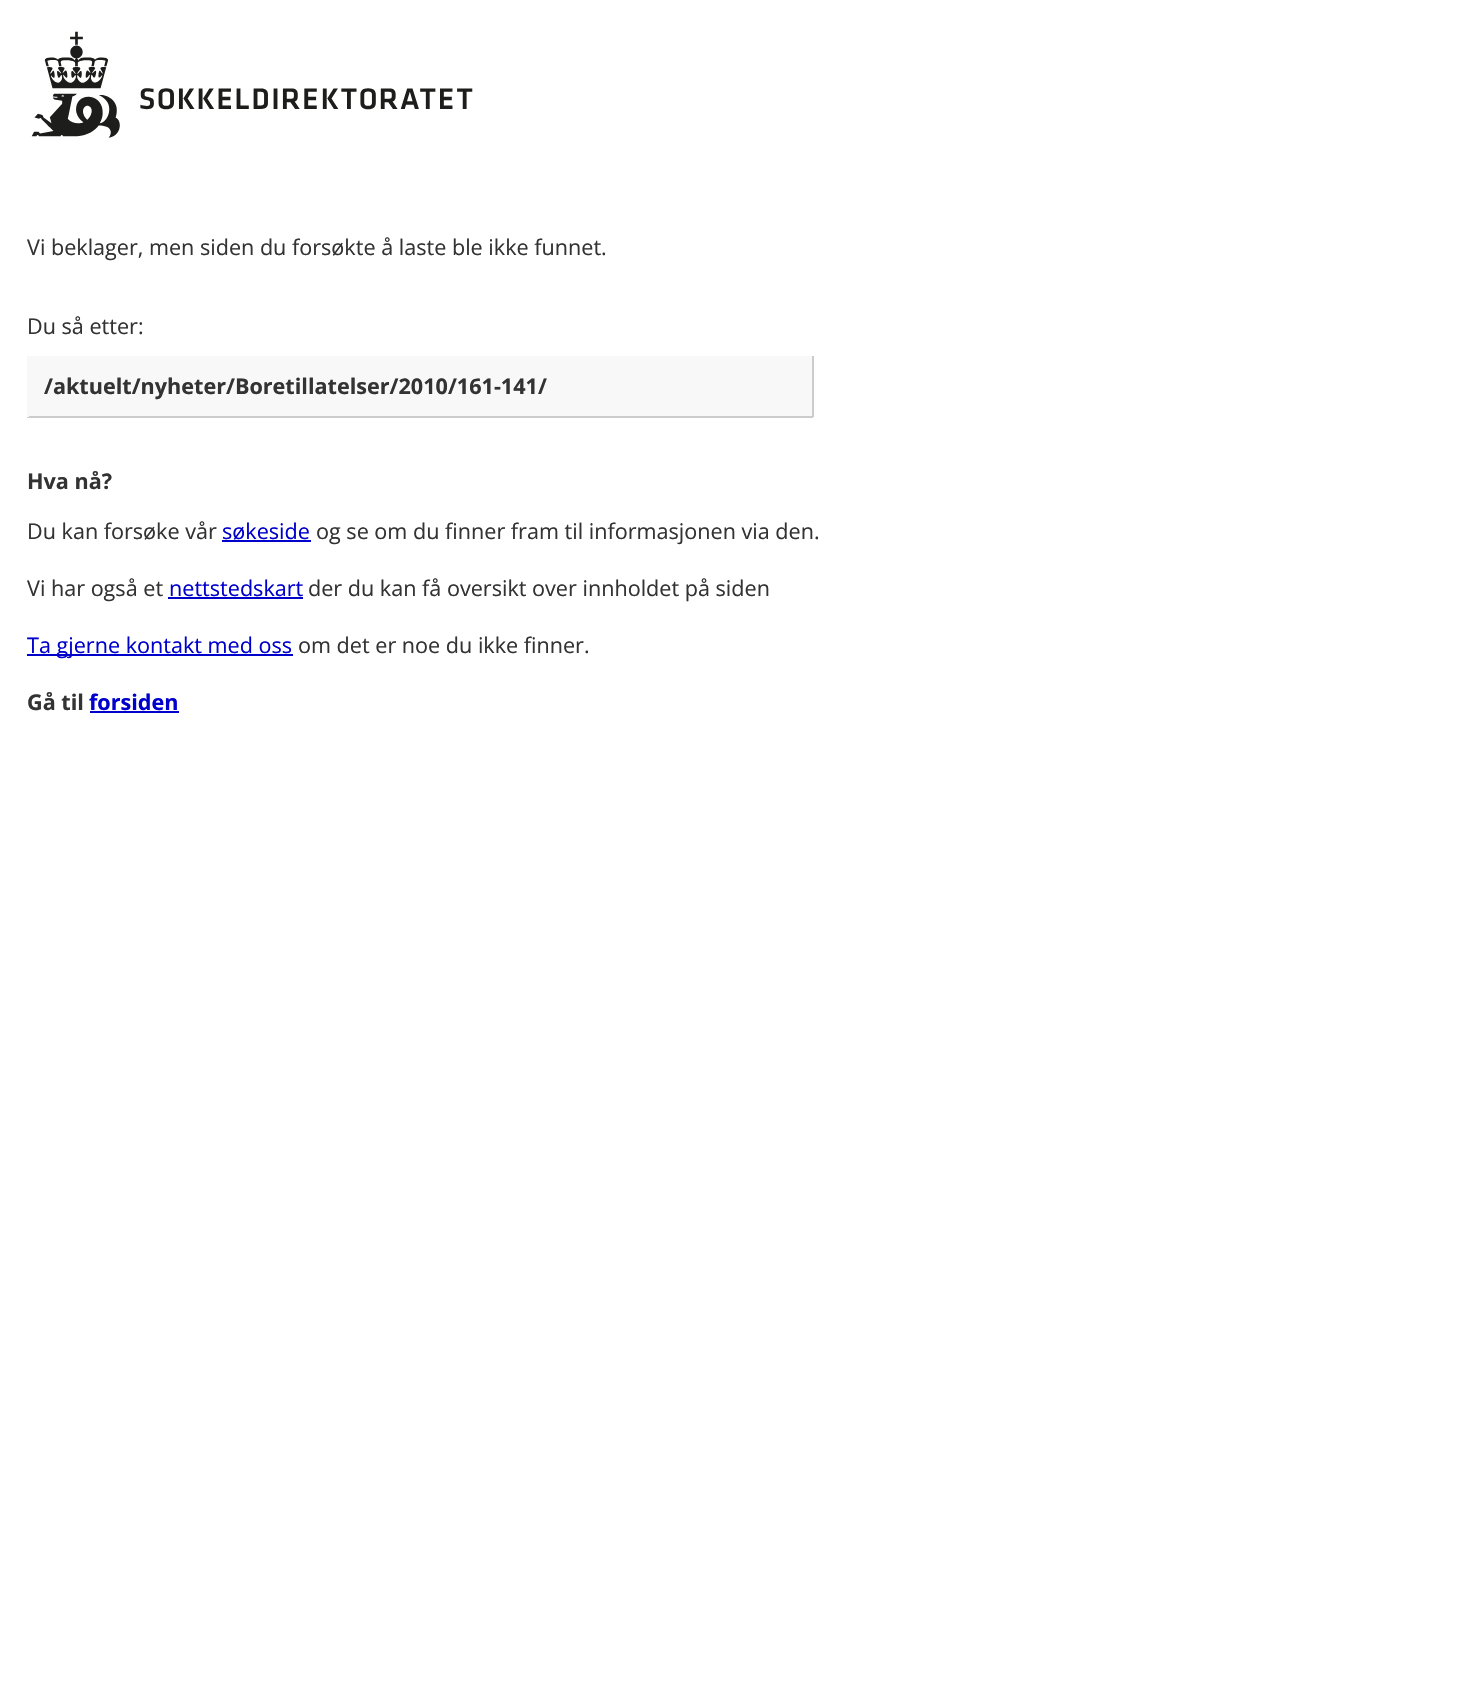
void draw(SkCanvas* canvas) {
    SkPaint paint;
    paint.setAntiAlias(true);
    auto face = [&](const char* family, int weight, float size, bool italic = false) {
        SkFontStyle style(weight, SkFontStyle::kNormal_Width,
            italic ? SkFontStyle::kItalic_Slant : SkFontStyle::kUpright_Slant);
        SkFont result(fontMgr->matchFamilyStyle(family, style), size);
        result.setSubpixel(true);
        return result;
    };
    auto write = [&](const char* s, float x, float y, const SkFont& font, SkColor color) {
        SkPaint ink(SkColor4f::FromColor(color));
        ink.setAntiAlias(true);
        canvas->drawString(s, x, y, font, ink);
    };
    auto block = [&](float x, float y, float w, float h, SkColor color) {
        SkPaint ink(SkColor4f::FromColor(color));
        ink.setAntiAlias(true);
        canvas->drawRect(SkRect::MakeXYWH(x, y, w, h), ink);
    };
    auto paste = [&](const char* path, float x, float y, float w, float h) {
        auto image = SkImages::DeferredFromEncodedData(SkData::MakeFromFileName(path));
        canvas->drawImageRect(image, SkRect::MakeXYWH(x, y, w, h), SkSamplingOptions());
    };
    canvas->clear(SK_ColorWHITE);
    paste("pic1.png", 31, 31, 442, 107);
    auto kFont1 = face("Open Sans", 400, 21.6f);
    write("Vi beklager, men siden du forsøkte å laste ble ikke funnet.", 27, 255, kFont1, SkColorSetRGB(51, 51, 51));
    write("Du så etter:", 27, 334, kFont1, SkColorSetRGB(51, 51, 51));
    block(29, 356, 783, 60, SkColorSetRGB(248, 248, 248));
    block(812, 356, 2, 61, SkColorSetRGB(204, 204, 204));
    block(27, 416, 786, 2, SkColorSetRGB(204, 204, 204));
    block(27, 356, 2, 61, SkColorSetRGB(248, 248, 248));
    auto kFont2 = face("Open Sans", 700, 21.6f);
    write("/aktuelt/nyheter/Boretillatelser/2010/161-141/", 44, 394, kFont2, SkColorSetRGB(51, 51, 51));
    write("Hva nå?", 27, 489, kFont2, SkColorSetRGB(51, 51, 51));
    write("Du kan forsøke vår", 27, 539, kFont1, SkColorSetRGB(51, 51, 51));
    write("søkeside", 222, 539, kFont1, SkColorSetRGB(0, 0, 204));
    block(222, 540, 89, 2, SkColorSetRGB(0, 0, 204));
    write("og se om du finner fram til informasjonen via den.", 316, 539, kFont1, SkColorSetRGB(51, 51, 51));
    write("Vi har også et", 27, 596, kFont1, SkColorSetRGB(51, 51, 51));
    write("nettstedskart", 169, 596, kFont1, SkColorSetRGB(0, 0, 204));
    block(168, 597, 135, 2, SkColorSetRGB(0, 0, 204));
    write("der du kan få oversikt over innholdet på siden", 308, 596, kFont1, SkColorSetRGB(51, 51, 51));
    block(27, 654, 266, 2, SkColorSetRGB(0, 0, 204));
    write("Ta gjerne kontakt med oss", 27, 653, kFont1, SkColorSetRGB(0, 0, 204));
    write("om det er noe du ikke finner.", 298, 653, kFont1, SkColorSetRGB(51, 51, 51));
    write("Gå til", 27, 710, kFont2, SkColorSetRGB(51, 51, 51));
    write("forsiden", 89, 710, kFont2, SkColorSetRGB(0, 0, 204));
    block(90, 711, 89, 2, SkColorSetRGB(0, 0, 204));
}
